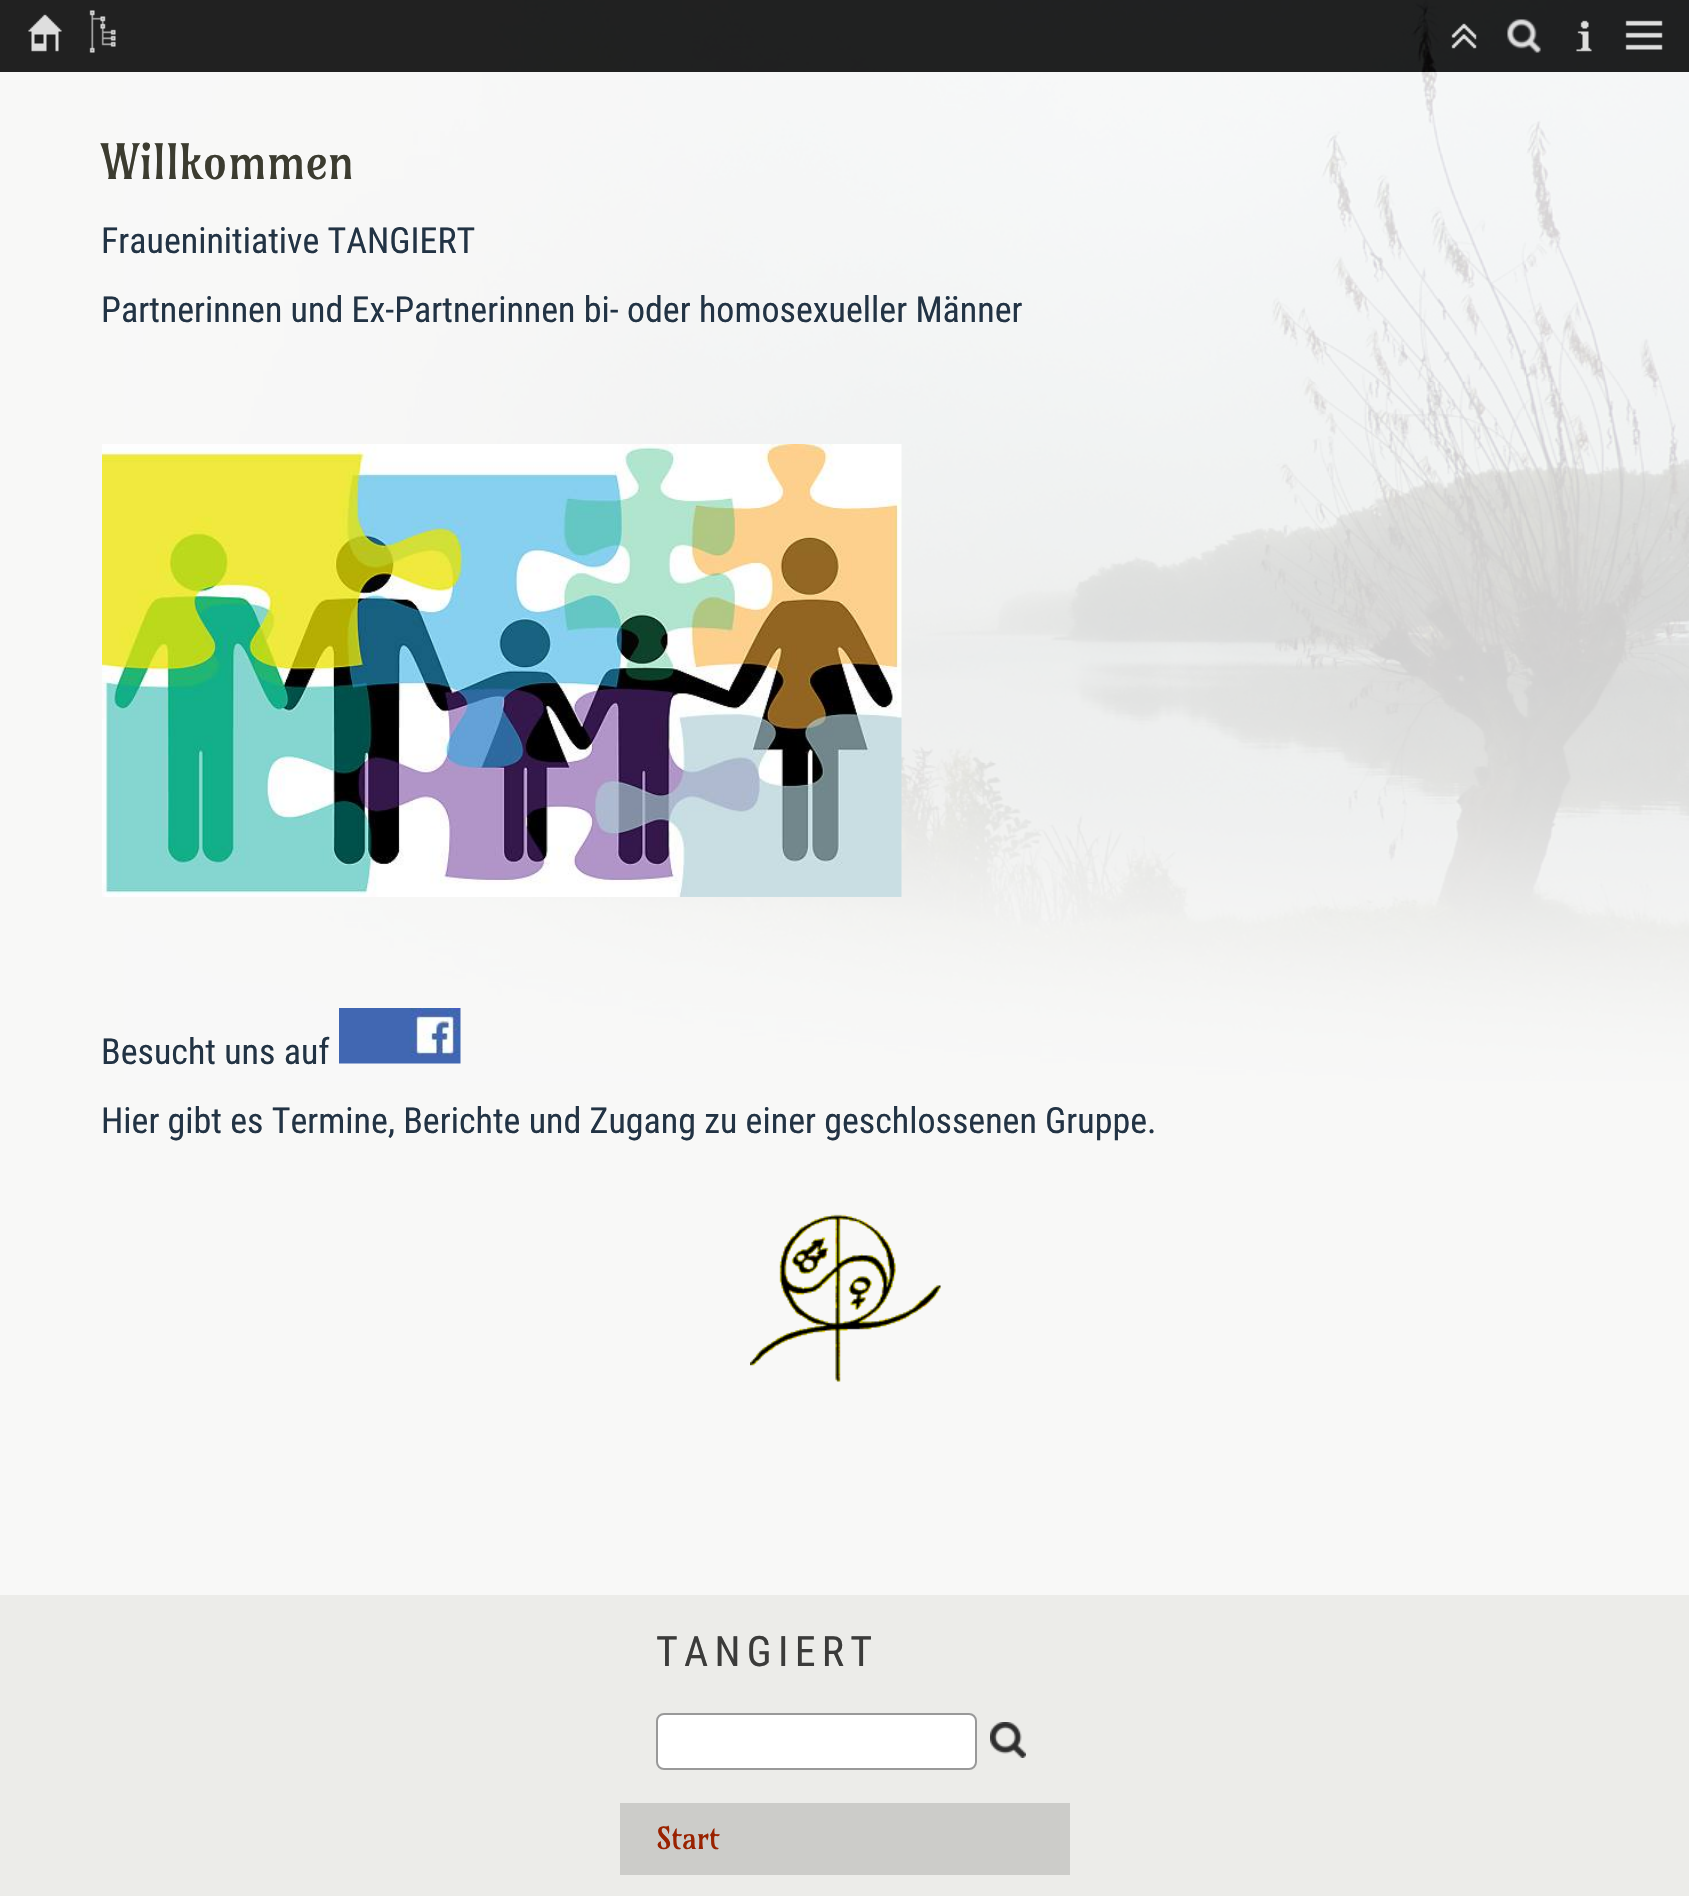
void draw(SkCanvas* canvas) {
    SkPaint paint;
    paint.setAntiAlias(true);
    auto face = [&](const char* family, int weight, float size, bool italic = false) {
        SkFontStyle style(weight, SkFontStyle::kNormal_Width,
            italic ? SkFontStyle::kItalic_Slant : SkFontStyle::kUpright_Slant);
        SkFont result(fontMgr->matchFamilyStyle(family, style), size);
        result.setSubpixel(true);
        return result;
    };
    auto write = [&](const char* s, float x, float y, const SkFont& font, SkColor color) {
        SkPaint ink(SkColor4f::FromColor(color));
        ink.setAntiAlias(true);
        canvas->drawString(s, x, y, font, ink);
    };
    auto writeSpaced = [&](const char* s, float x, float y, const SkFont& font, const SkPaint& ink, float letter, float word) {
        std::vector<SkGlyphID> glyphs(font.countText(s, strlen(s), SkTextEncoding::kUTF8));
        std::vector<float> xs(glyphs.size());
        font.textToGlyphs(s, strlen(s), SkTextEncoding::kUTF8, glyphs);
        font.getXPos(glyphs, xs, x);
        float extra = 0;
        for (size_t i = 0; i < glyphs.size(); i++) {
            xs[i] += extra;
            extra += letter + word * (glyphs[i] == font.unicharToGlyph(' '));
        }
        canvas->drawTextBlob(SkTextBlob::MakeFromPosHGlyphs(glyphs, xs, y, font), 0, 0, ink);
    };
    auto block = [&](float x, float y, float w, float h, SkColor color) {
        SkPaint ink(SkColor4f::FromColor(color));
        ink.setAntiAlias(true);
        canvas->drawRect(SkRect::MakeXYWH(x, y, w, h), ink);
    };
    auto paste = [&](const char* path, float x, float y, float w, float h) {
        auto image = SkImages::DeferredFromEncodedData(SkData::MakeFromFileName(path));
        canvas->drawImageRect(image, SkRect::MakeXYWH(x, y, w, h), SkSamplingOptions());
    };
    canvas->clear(SkColorSetRGB(220, 220, 217));
    block(0, 72, 1689, 1523, SkColorSetRGB(248, 248, 247));
    paste("pic7.png", 124, 0, 1565, 1081);
    block(0, 0, 1689, 72, SkColorSetARGB(217, 0, 0, 0));
    paste("pic1.png", 28, 14, 34, 38);
    paste("pic2.png", 89, 10, 27, 43);
    paste("pic3.png", 1451, 23, 26, 26);
    paste("pic4.png", 1507, 19, 34, 34);
    paste("pic5.png", 1576, 20, 16, 32);
    paste("pic6.png", 1625, 20, 38, 30);
    auto kFont1 = face("Amarante", 400, 48);
    write("Willkommen", 101, 179, kFont1, SkColorSetRGB(60, 60, 48));
    auto kFont2 = face("Roboto Condensed", 400, 36);
    write("Fraueninitiative TANGIERT", 101, 253, kFont2, SkColorSetRGB(34, 51, 68));
    write("Partnerinnen und Ex-Partnerinnen bi- oder homosexueller Männer", 101, 322, kFont2, SkColorSetRGB(34, 51, 68));
    paste("pic8.png", 102, 444, 800, 453);
    write("Besucht uns auf", 101, 1064, kFont2, SkColorSetRGB(34, 51, 68));
    paste("pic9.png", 339, 1008, 122, 56);
    write("Hier gibt es Termine, Berichte und Zugang zu einer geschlossenen Gruppe.", 101, 1133, kFont2, SkColorSetRGB(34, 51, 68));
    paste("pic10.png", 750, 1214, 191, 168);
    block(0, 1595, 1689, 301, SkColorSetRGB(236, 236, 233));
    auto kFont3 = face("Roboto Condensed", 400, 42);
    paint.setColor(SkColorSetRGB(59, 59, 58));
    writeSpaced("TANGIERT", 656, 1666, kFont3, paint, 6.25f, 0);
    paint.setColor(SK_ColorWHITE);
    canvas->drawRoundRect(SkRect::MakeXYWH(657, 1714, 319, 55), 7, 7, paint);
    paint.setStyle(SkPaint::kStroke_Style);
    paint.setStrokeWidth(2);
    paint.setColor(SkColorSetRGB(153, 153, 153));
    canvas->drawRoundRect(SkRect::MakeXYWH(657, 1714, 319, 55), 7, 7, paint);
    paste("pic11.png", 990, 1722, 36, 36);
    block(620, 1803, 450, 72, SkColorSetRGB(204, 204, 201));
    auto kFont4 = face("Amarante", 400, 30);
    write("Start", 656, 1849, kFont4, SkColorSetRGB(153, 34, 0));
}
